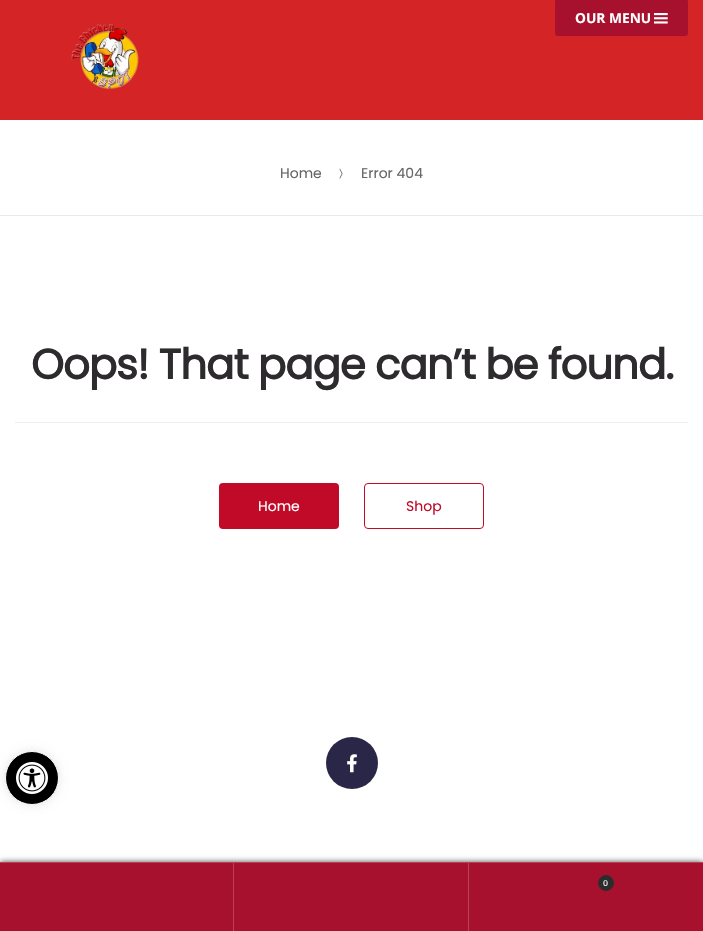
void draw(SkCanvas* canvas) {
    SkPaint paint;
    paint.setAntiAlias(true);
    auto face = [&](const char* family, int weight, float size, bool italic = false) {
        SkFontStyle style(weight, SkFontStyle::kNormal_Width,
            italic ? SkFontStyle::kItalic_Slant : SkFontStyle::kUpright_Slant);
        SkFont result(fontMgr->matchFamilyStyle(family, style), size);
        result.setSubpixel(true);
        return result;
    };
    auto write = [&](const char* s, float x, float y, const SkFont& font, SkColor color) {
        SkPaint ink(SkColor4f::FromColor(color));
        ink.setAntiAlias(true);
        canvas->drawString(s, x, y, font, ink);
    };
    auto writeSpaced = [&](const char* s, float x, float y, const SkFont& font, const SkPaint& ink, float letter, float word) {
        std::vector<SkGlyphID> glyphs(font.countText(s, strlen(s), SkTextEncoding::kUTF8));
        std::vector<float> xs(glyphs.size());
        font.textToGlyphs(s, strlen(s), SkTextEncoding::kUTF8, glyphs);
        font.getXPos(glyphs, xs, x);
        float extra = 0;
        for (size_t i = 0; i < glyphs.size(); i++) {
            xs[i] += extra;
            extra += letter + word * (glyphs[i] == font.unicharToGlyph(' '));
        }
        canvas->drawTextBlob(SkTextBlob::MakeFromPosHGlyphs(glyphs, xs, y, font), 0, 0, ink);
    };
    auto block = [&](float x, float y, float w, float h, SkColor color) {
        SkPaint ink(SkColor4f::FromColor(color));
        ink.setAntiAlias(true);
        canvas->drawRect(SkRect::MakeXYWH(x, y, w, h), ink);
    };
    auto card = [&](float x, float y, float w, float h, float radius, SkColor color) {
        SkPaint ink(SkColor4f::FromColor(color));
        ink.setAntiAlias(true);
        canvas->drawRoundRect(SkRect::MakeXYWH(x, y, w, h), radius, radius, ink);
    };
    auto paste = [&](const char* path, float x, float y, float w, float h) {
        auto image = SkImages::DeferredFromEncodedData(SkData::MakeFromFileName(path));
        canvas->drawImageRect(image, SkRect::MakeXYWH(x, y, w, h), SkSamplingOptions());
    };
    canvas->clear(SK_ColorWHITE);
    block(0, 0, 703, 120, SkColorSetRGB(212, 36, 38));
    card(555, -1, 133, 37, 3, SkColorSetRGB(167, 17, 45));
    auto kFont1 = face("Open Sans", 700, 13.75f);
    write("OUR MENU", 575, 23, kFont1, SK_ColorWHITE);
    paste("pic1.png", 654, 13, 14, 11);
    paste("pic2.png", 71, 24, 68, 66);
    block(0, 215, 703, 1, SkColorSetRGB(233, 233, 233));
    auto kFont2 = face("Poppins", 400, 14);
    write("Home", 280, 178, kFont2, SkColorSetRGB(102, 102, 102));
    paste("pic3.png", 339, 168, 4, 11);
    write("Error 404", 361, 178, kFont2, SkColorSetRGB(102, 102, 102));
    block(15, 422, 673, 1, SkColorSetRGB(238, 238, 238));
    auto kFont3 = face("Poppins", 700, 41.9f);
    paint.setColor(SkColorSetRGB(45, 43, 45));
    writeSpaced("Oops! That page can’t be found.", 31, 379, kFont3, paint, -1, 0);
    card(219, 483, 120, 46, 4, SkColorSetRGB(192, 10, 39));
    write("Home", 258, 511, kFont2, SK_ColorWHITE);
    paint.setStyle(SkPaint::kStroke_Style);
    paint.setStrokeWidth(1);
    paint.setColor(SkColorSetRGB(192, 10, 39));
    canvas->drawRoundRect(SkRect::MakeXYWH(364.5f, 483.5f, 119, 45), 3.5f, 3.5f, paint);
    write("Shop", 406, 511, kFont2, SkColorSetRGB(192, 10, 39));
    paint.setStyle(SkPaint::kFill_Style);
    paint.setColor(SkColorSetRGB(41, 38, 72));
    canvas->drawCircle(352, 763, 26, paint);
    paste("pic4.png", 347, 754, 10, 19);
    paint.setColor(SkColorSetARGB(179, 0, 0, 0));
    paint.setMaskFilter(SkMaskFilter::MakeBlur(kNormal_SkBlurStyle, 3));
    canvas->drawRect(SkRect::MakeXYWH(0, 862, 703, 69), paint);
    paint.setMaskFilter(nullptr);
    block(0, 863, 703, 68, SkColorSetRGB(167, 17, 45));
    block(0, 862, 703, 1, SkColorSetRGB(185, 65, 87));
    block(233, 863, 1, 68, SkColorSetRGB(185, 65, 87));
    block(468, 863, 1, 68, SkColorSetRGB(185, 65, 87));
    paint.setColor(SkColorSetRGB(44, 44, 44));
    canvas->drawCircle(606, 883, 7.5f, paint);
    paint.setStyle(SkPaint::kStroke_Style);
    canvas->drawCircle(606, 883, 7.5f, paint);
    auto kFont4 = face("Poppins", 400, 8);
    write("0", 603, 886, kFont4, SK_ColorWHITE);
    paint.setStyle(SkPaint::kFill_Style);
    paint.setColor(SkColorSetARGB(26, 0, 0, 0));
    paint.setMaskFilter(SkMaskFilter::MakeBlur(kNormal_SkBlurStyle, 5));
    canvas->drawRoundRect(SkRect::MakeXYWH(5, 751, 54, 54), 27, 27, paint);
    paint.setMaskFilter(nullptr);
    paint.setColor(SK_ColorBLACK);
    canvas->drawCircle(32, 778, 26.5f, paint);
    paint.setStyle(SkPaint::kStroke_Style);
    paint.setColor(SK_ColorWHITE);
    canvas->drawCircle(32, 778, 26.5f, paint);
    paste("pic5.png", 16, 762, 32, 32);
}
